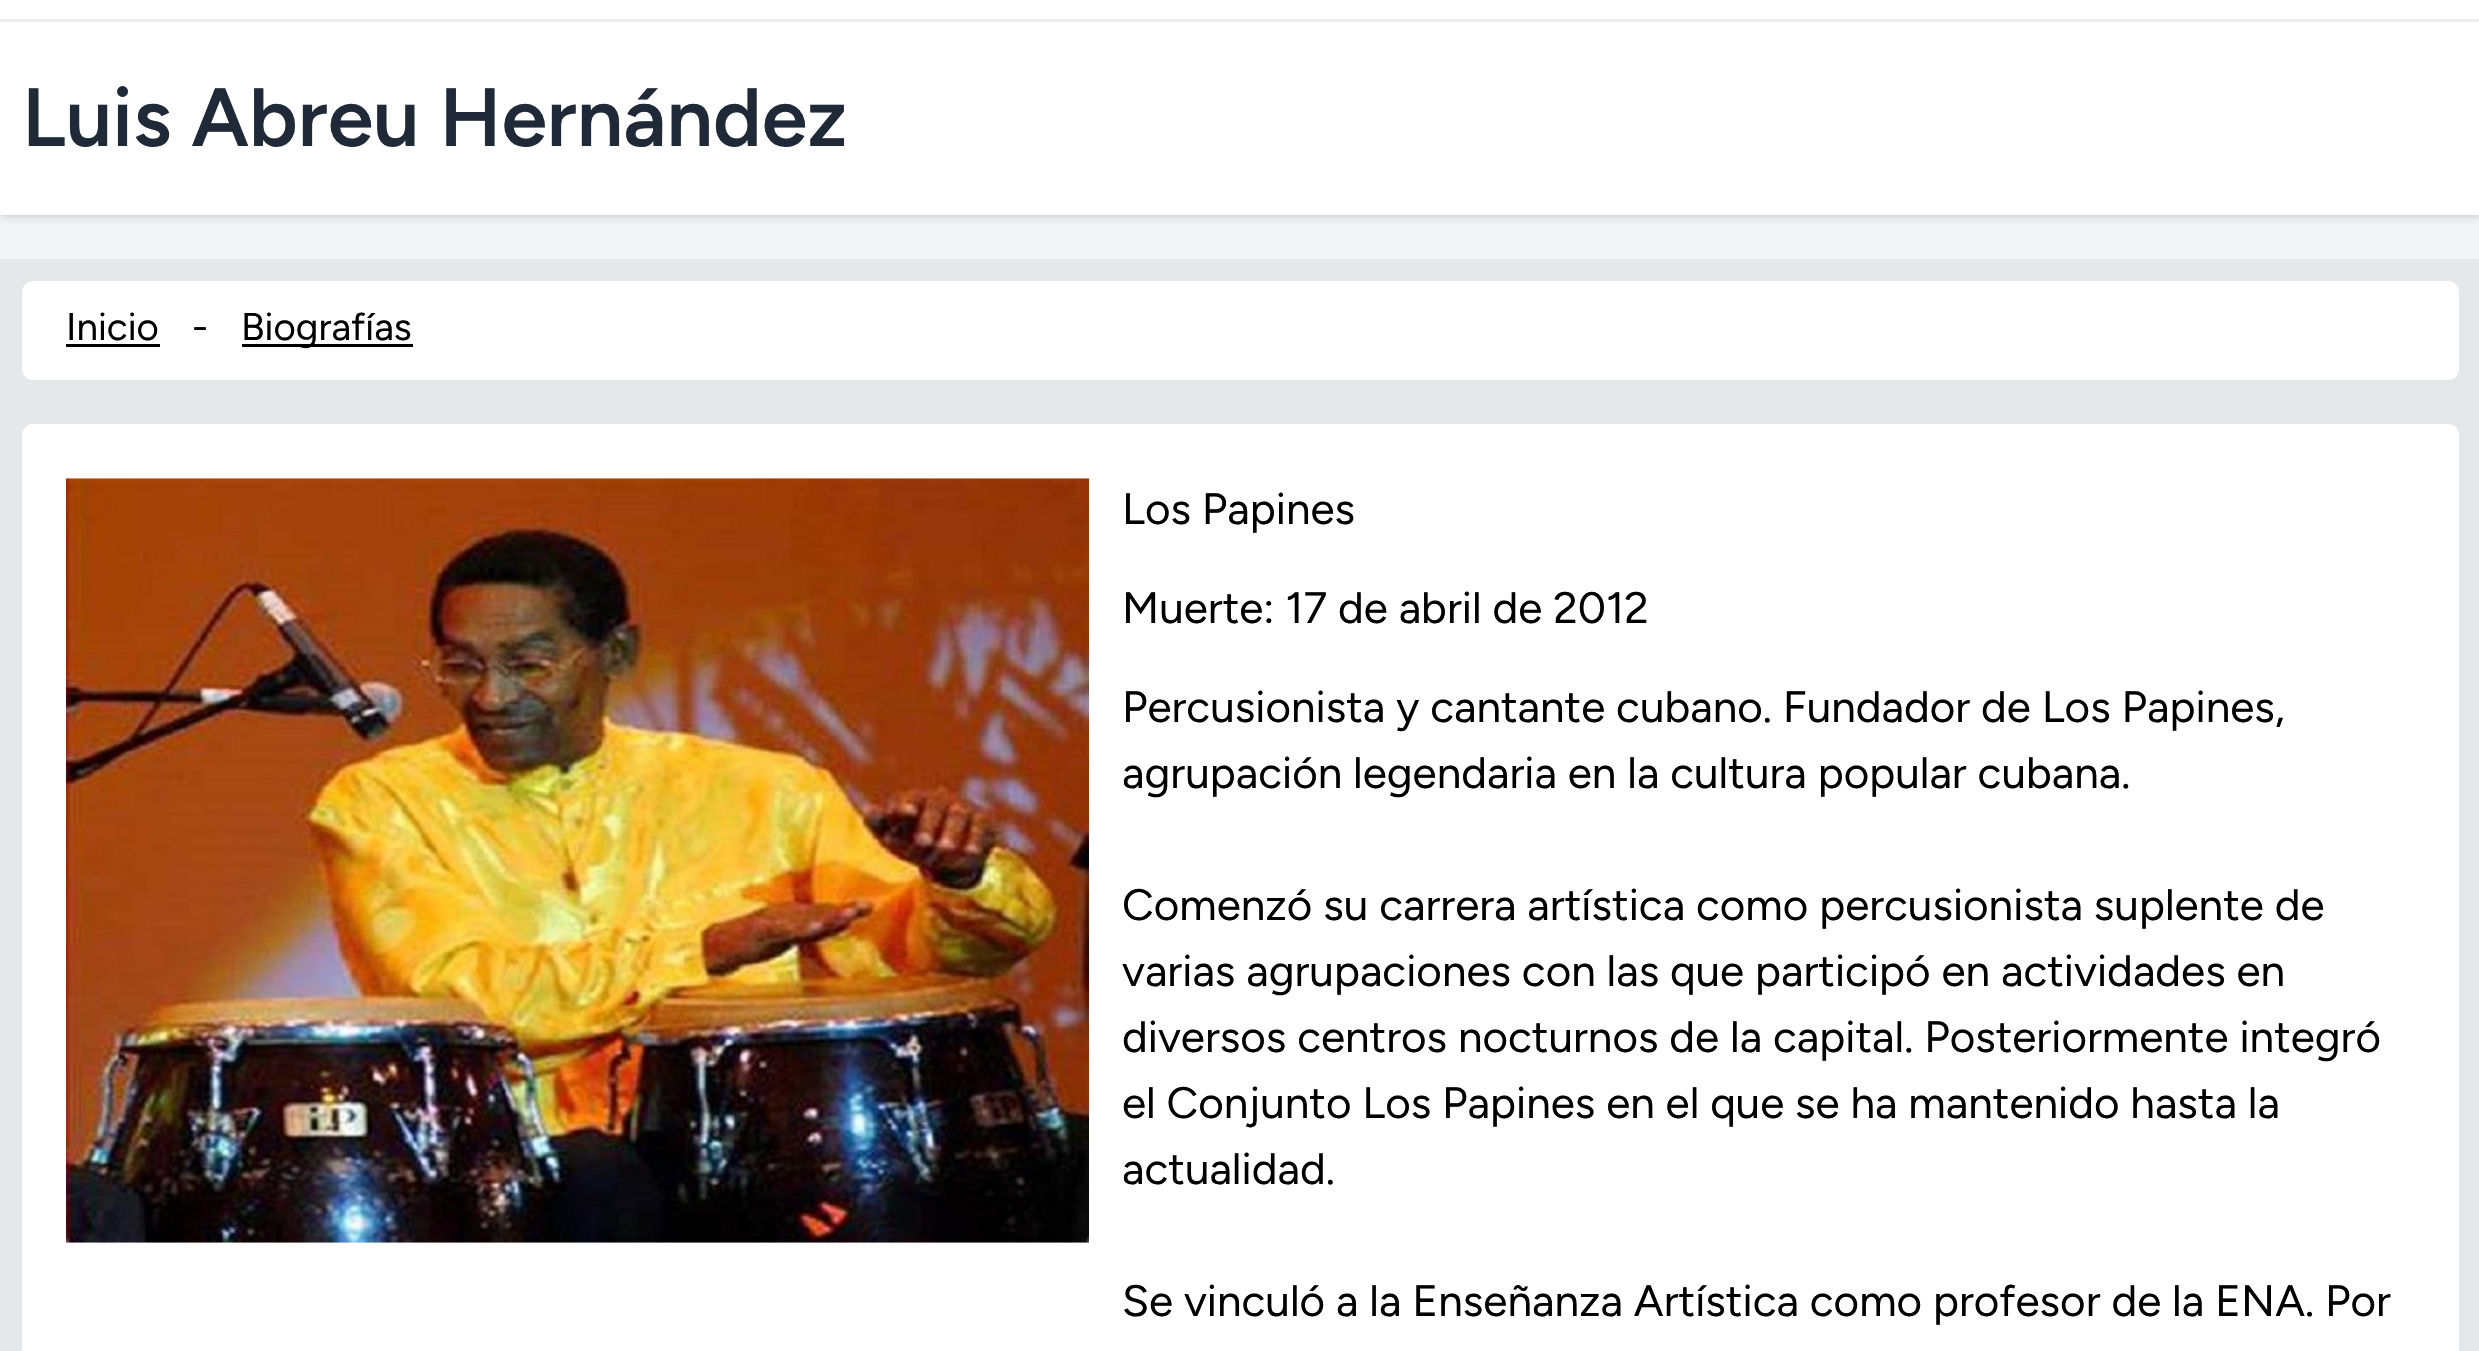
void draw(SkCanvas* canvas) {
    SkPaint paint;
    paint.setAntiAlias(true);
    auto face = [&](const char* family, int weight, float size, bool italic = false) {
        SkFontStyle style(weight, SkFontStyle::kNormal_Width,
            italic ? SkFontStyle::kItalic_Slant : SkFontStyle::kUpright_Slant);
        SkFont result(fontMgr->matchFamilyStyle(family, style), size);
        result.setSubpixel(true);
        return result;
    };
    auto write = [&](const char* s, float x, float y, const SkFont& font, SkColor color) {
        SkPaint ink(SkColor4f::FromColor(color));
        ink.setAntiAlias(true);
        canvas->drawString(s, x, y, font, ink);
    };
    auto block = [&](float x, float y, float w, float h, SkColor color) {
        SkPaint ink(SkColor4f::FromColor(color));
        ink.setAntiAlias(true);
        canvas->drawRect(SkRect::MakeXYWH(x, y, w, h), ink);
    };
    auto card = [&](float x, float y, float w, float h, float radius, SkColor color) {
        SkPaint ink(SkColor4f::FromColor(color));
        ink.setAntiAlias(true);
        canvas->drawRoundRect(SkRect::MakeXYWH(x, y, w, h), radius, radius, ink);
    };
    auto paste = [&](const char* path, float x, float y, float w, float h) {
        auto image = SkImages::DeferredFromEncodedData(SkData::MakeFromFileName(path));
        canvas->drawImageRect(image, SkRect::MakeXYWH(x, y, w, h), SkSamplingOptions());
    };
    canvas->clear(SkColorSetRGB(243, 244, 246));
    block(0, 0, 2479, 19, SK_ColorWHITE);
    paint.setColor(SkColorSetARGB(26, 0, 0, 0));
    paint.setMaskFilter(SkMaskFilter::MakeBlur(kNormal_SkBlurStyle, 3));
    canvas->drawRect(SkRect::MakeXYWH(3, 28, 2475, 187), paint);
    paint.setMaskFilter(nullptr);
    paint.setMaskFilter(SkMaskFilter::MakeBlur(kNormal_SkBlurStyle, 4));
    canvas->drawRect(SkRect::MakeXYWH(0, 25, 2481, 192), paint);
    paint.setMaskFilter(nullptr);
    block(0, 22, 2479, 193, SK_ColorWHITE);
    auto kFont1 = face("Figtree", 600, 82.5f);
    write("Luis Abreu Hernández", 22, 146, kFont1, SkColorSetRGB(31, 41, 55));
    block(0, 259, 2479, 1092, SkColorSetRGB(229, 231, 235));
    card(22, 281, 2437, 99, 11, SK_ColorWHITE);
    auto kFont2 = face("Figtree", 400, 38.5f);
    write("Inicio", 66, 340, kFont2, SK_ColorBLACK);
    block(66, 344, 94, 3, SK_ColorBLACK);
    write("-", 192, 340, kFont2, SK_ColorBLACK);
    block(242, 344, 171, 3, SK_ColorBLACK);
    write("Biografías", 241, 340, kFont2, SK_ColorBLACK);
    card(22, 424, 2437, 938, 11, SK_ColorWHITE);
    paste("pic1.png", 66, 478, 1023, 765);
    auto kFont3 = face("Figtree", 400, 44);
    write("Los Papines", 1122, 524, kFont3, SK_ColorBLACK);
    write("Muerte: 17 de abril de 2012", 1122, 623, kFont3, SK_ColorBLACK);
    write("Percusionista y cantante cubano. Fundador de Los Papines,", 1122, 722, kFont3, SK_ColorBLACK);
    write("agrupación legendaria en la cultura popular cubana.", 1122, 788, kFont3, SK_ColorBLACK);
    write("Comenzó su carrera artística como percusionista suplente de", 1122, 920, kFont3, SK_ColorBLACK);
    write("varias agrupaciones con las que participó en actividades en", 1122, 986, kFont3, SK_ColorBLACK);
    write("diversos centros nocturnos de la capital. Posteriormente integró", 1122, 1052, kFont3, SK_ColorBLACK);
    write("el Conjunto Los Papines en el que se ha mantenido hasta la", 1122, 1118, kFont3, SK_ColorBLACK);
    write("actualidad.", 1122, 1184, kFont3, SK_ColorBLACK);
    write("Se vinculó a la Enseñanza Artística como profesor de la ENA. Por", 1122, 1316, kFont3, SK_ColorBLACK);
}
